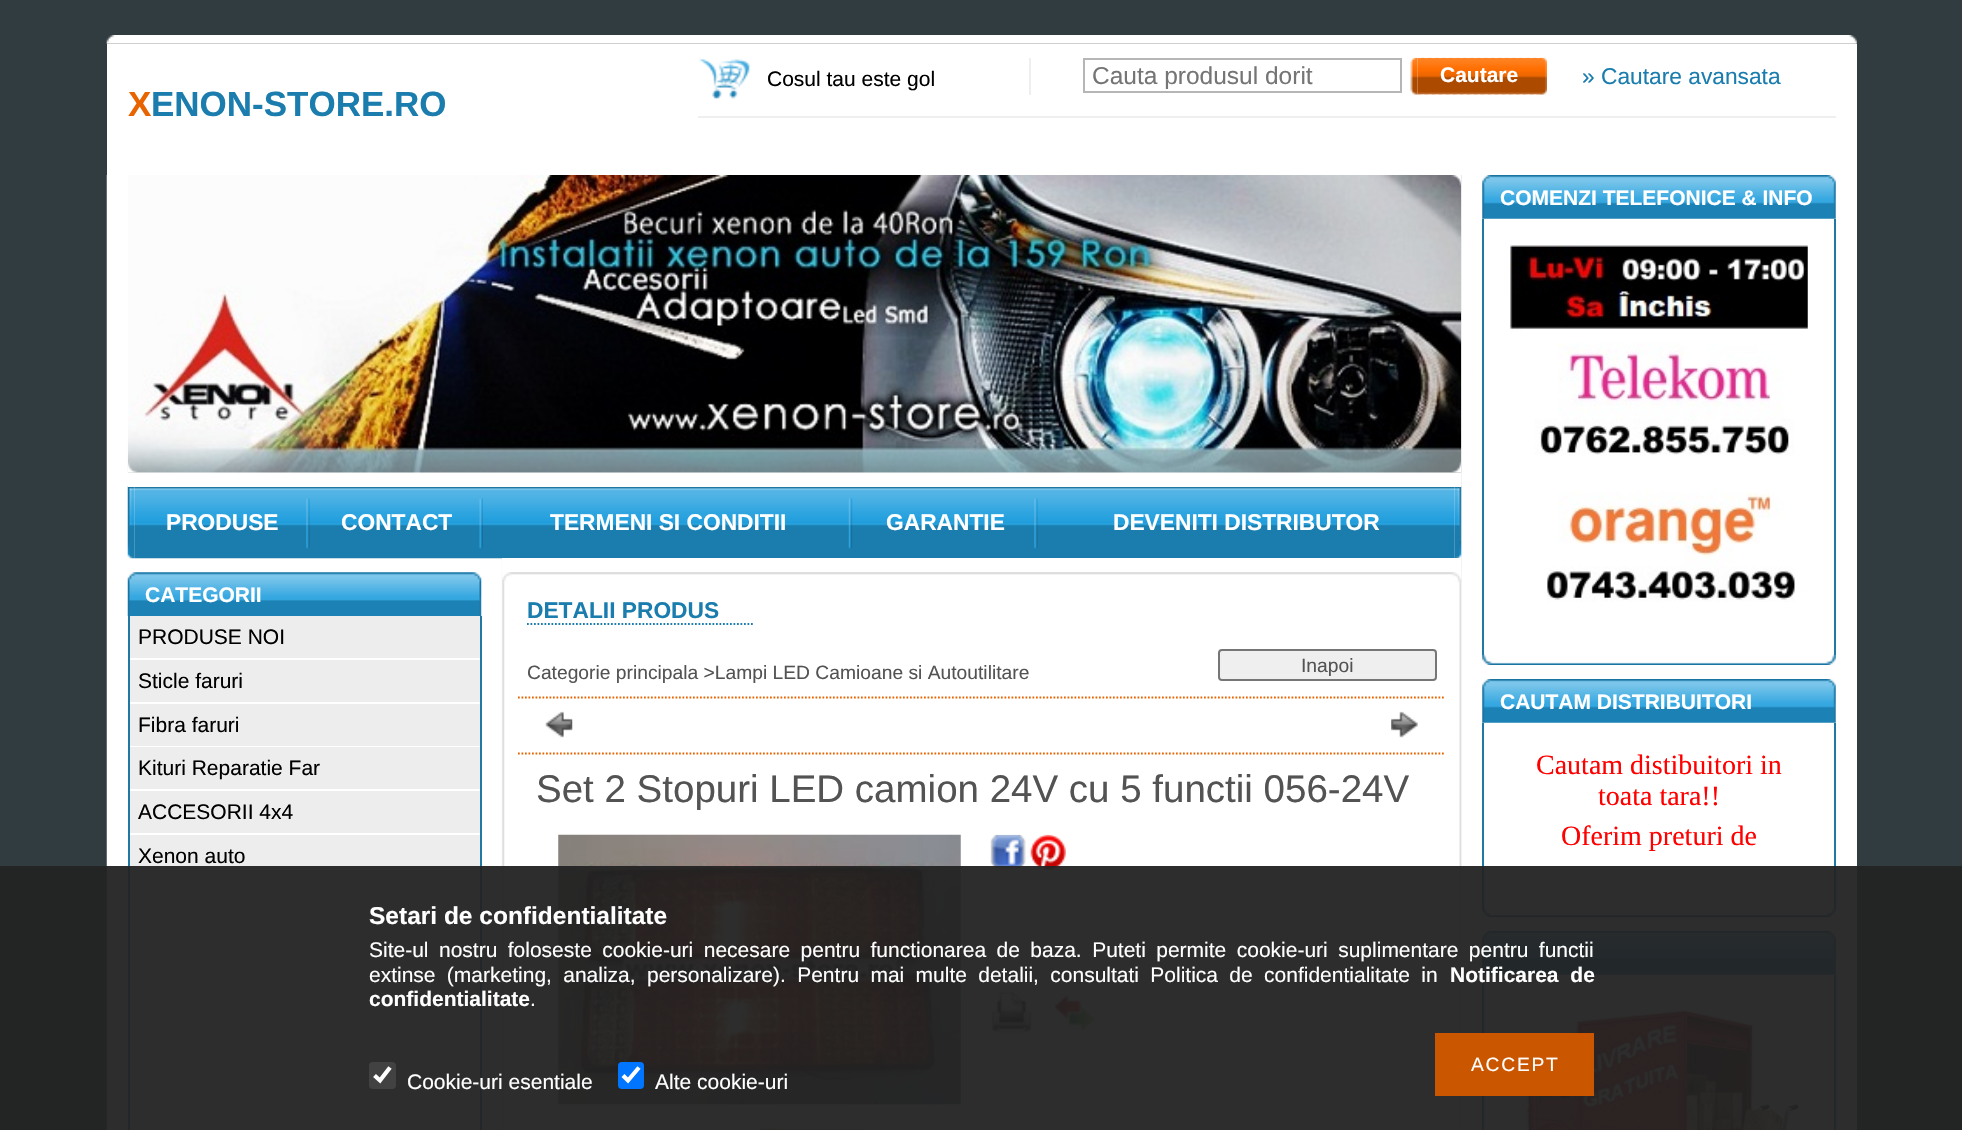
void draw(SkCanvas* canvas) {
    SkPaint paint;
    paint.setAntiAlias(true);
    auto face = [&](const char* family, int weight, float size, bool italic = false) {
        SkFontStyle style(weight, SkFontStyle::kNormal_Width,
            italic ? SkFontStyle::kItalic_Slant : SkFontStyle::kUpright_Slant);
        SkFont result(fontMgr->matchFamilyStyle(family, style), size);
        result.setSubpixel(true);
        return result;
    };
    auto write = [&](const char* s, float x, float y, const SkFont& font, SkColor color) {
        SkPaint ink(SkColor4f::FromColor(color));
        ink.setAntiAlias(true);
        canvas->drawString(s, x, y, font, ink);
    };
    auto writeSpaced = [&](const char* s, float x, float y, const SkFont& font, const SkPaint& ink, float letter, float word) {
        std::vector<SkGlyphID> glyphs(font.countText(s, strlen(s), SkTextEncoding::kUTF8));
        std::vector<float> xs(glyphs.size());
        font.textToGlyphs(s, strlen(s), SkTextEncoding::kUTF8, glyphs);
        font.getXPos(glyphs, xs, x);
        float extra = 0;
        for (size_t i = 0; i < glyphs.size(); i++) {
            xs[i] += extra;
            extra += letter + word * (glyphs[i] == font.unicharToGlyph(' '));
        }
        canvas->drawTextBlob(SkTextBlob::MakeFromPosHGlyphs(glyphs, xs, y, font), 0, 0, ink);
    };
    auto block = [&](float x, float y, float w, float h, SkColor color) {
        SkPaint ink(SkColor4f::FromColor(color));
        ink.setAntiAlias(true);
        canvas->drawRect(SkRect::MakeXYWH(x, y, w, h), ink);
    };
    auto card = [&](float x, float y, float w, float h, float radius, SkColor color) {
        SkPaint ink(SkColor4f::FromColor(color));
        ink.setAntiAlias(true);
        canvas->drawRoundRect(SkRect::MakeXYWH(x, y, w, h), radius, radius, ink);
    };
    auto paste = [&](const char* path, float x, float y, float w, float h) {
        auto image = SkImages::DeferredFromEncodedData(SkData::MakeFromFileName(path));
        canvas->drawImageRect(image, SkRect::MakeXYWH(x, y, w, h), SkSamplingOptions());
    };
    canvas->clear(SkColorSetRGB(49, 60, 64));
    paste("pic1.png", 106, 35, 1751, 9);
    block(107, 44, 1750, 131, SK_ColorWHITE);
    block(698, 116, 1138, 2, SkColorSetRGB(239, 239, 239));
    paste("pic2.png", 698, 58, 52, 41);
    block(1029, 58, 2, 37, SkColorSetRGB(239, 239, 239));
    auto kFont1 = face("Liberation Sans", 400, 21);
    write("Cosul tau este gol", 767, 86, kFont1, SK_ColorBLACK);
    paint.setStyle(SkPaint::kStroke_Style);
    paint.setStrokeWidth(2);
    paint.setColor(SkColorSetRGB(182, 182, 182));
    canvas->drawRect(SkRect::MakeXYWH(1084, 59, 317, 33), paint);
    auto kFont2 = face("Liberation Sans", 400, 24.5f);
    write("Cauta produsul dorit", 1092, 84, kFont2, SkColorSetRGB(117, 117, 117));
    paste("pic3.png", 1410, 57, 8, 38);
    paste("pic4.png", 1540, 57, 7, 38);
    paste("pic5.png", 1417, 57, 123, 38);
    auto kFont3 = face("Liberation Sans", 700, 21);
    write("Cautare", 1440, 82, kFont3, SK_ColorWHITE);
    auto kFont4 = face("Liberation Sans", 400, 22.75f);
    write("» Cautare avansata", 1582, 84, kFont4, SkColorSetRGB(26, 125, 174));
    auto kFont5 = face("Liberation Sans", 700, 35);
    write("X", 128, 116, kFont5, SkColorSetRGB(232, 100, 0));
    write("ENON-STORE.RO", 151, 116, kFont5, SkColorSetRGB(26, 125, 174));
    block(1462, 175, 395, 955, SK_ColorWHITE);
    paste("pic6.png", 106, 175, 1356, 955);
    paste("pic10.png", 127, 486, 8, 73);
    paste("pic11.png", 134, 487, 1321, 72);
    paste("pic15.png", 1454, 486, 8, 73);
    block(128, 472, 1333, 15, SK_ColorWHITE);
    paste("pic7.png", 127, 175, 1335, 298);
    paste("pic8.png", 128, 462, 9, 11);
    paste("pic9.png", 1451, 175, 10, 298);
    paste("pic12.png", 306, 498, 4, 51);
    auto kFont6 = face("Liberation Sans", 700, 22.75f);
    write("PRODUSE", 166, 530, kFont6, SK_ColorWHITE);
    paste("pic13.png", 479, 498, 4, 51);
    write("CONTACT", 341, 530, kFont6, SK_ColorWHITE);
    paste("pic14.png", 848, 498, 5, 51);
    write("TERMENI SI CONDITII", 550, 530, kFont6, SK_ColorWHITE);
    paste("pic12.png", 1034, 498, 4, 51);
    write("GARANTIE", 886, 530, kFont6, SK_ColorWHITE);
    write("DEVENITI DISTRIBUTOR", 1113, 530, kFont6, SK_ColorWHITE);
    paste("pic16.png", 127, 572, 355, 44);
    write("CATEGORII", 145, 602, kFont3, SK_ColorWHITE);
    block(480, 616, 2, 514, SkColorSetRGB(32, 120, 165));
    block(128, 616, 2, 514, SkColorSetRGB(32, 120, 165));
    block(130, 616, 350, 42, SkColorSetRGB(237, 237, 237));
    write("PRODUSE NOI", 138, 644, kFont1, SK_ColorBLACK);
    block(130, 660, 350, 42, SkColorSetRGB(237, 237, 237));
    write("Sticle faruri", 138, 688, kFont1, SK_ColorBLACK);
    block(130, 704, 350, 42, SkColorSetRGB(237, 237, 237));
    write("Fibra faruri", 138, 732, kFont1, SK_ColorBLACK);
    block(130, 747, 350, 42, SkColorSetRGB(237, 237, 237));
    write("Kituri Reparatie Far", 138, 775, kFont1, SK_ColorBLACK);
    block(130, 791, 350, 42, SkColorSetRGB(237, 237, 237));
    write("ACCESORII 4x4", 138, 819, kFont1, SK_ColorBLACK);
    block(130, 835, 350, 42, SkColorSetRGB(237, 237, 237));
    write("Xenon auto", 138, 863, kFont1, SK_ColorBLACK);
    block(130, 879, 350, 42, SkColorSetRGB(237, 237, 237));
    block(130, 922, 350, 42, SkColorSetRGB(237, 237, 237));
    block(130, 966, 350, 42, SkColorSetRGB(237, 237, 237));
    block(130, 1010, 350, 42, SkColorSetRGB(237, 237, 237));
    block(130, 1054, 350, 42, SkColorSetRGB(237, 237, 237));
    block(130, 1097, 350, 33, SkColorSetRGB(237, 237, 237));
    block(502, 558, 959, 25, SK_ColorWHITE);
    paste("pic17.png", 502, 572, 960, 11);
    paint.setStrokeWidth(1.8f);
    paint.setColor(SkColorSetRGB(26, 125, 174));
    paint.setPathEffect(SkDashPathEffect::Make({{1.75f, 1.75f}}, 0));
    canvas->drawPath(SkPathBuilder().moveTo(527, 624).lineTo(754, 624).detach(), paint);
    paint.setPathEffect(nullptr);
    write("DETALII PRODUS", 527, 618, kFont6, SkColorSetRGB(26, 125, 174));
    auto kFont7 = face("Liberation Sans", 400, 19.25f);
    write("Categorie principala >Lampi LED Camioane si Autoutilitare", 527, 679, kFont7, SkColorSetRGB(83, 83, 83));
    paint.setStyle(SkPaint::kFill_Style);
    paint.setColor(SkColorSetRGB(239, 239, 239));
    canvas->drawRoundRect(SkRect::MakeXYWH(1219, 650, 217, 30), 3, 3, paint);
    paint.setStyle(SkPaint::kStroke_Style);
    paint.setStrokeWidth(2);
    paint.setColor(SkColorSetRGB(118, 118, 118));
    canvas->drawRoundRect(SkRect::MakeXYWH(1219, 650, 217, 30), 3, 3, paint);
    write("Inapoi", 1301, 672, kFont7, SkColorSetRGB(83, 83, 83));
    paint.setStrokeWidth(1.8f);
    paint.setColor(SkColorSetRGB(232, 100, 0));
    paint.setPathEffect(SkDashPathEffect::Make({{1.75f, 1.75f}}, 0));
    canvas->drawPath(SkPathBuilder().moveTo(518, 697.5f).lineTo(1445.5f, 697.5f).detach(), paint);
    paint.setPathEffect(nullptr);
    paste("pic18.png", 545, 711, 28, 27);
    paste("pic19.png", 1391, 711, 27, 27);
    paint.setPathEffect(SkDashPathEffect::Make({{1.75f, 1.75f}}, 0));
    canvas->drawPath(SkPathBuilder().moveTo(518, 753.5f).lineTo(1445.5f, 753.5f).detach(), paint);
    paint.setPathEffect(nullptr);
    auto kFont8 = face("Liberation Sans", 400, 38.5f);
    write("Set 2 Stopuri LED camion 24V cu 5 functii 056-24V", 536, 802, kFont8, SkColorSetRGB(83, 83, 83));
    paste("pic20.png", 558, 834, 403, 271);
    paste("pic21.png", 759, 1128, 106, 2);
    paste("pic22.png", 990, 834, 36, 36);
    paste("pic23.png", 1030, 834, 36, 36);
    paste("pic24.png", 991, 992, 42, 41);
    paste("pic25.png", 1054, 995, 42, 37);
    paste("pic26.png", 1482, 175, 354, 44);
    write("COMENZI TELEFONICE & INFO", 1500, 205, kFont3, SK_ColorWHITE);
    paste("pic28.png", 1482, 654, 354, 11);
    block(1834, 219, 2, 436, SkColorSetRGB(32, 120, 165));
    block(1482, 219, 2, 436, SkColorSetRGB(32, 120, 165));
    paste("pic27.png", 1510, 245, 298, 357);
    paste("pic26.png", 1482, 679, 354, 44);
    write("CAUTAM DISTRIBUITORI", 1500, 709, kFont3, SK_ColorWHITE);
    paste("pic28.png", 1482, 906, 354, 11);
    block(1834, 723, 2, 184, SkColorSetRGB(32, 120, 165));
    block(1482, 723, 2, 184, SkColorSetRGB(32, 120, 165));
    auto kFont9 = face("Liberation Serif", 400, 28);
    write("Cautam distibuitori in", 1536, 774, kFont9, SkColorSetRGB(255, 0, 0));
    write("toata tara!!", 1598, 805, kFont9, SkColorSetRGB(255, 0, 0));
    write("Oferim preturi de", 1561, 845, kFont9, SkColorSetRGB(255, 0, 0));
    paste("pic26.png", 1482, 931, 354, 44);
    block(1834, 975, 2, 155, SkColorSetRGB(32, 120, 165));
    block(1482, 975, 2, 155, SkColorSetRGB(32, 120, 165));
    paste("pic29.png", 1519, 1001, 281, 129);
    block(0, 866, 1962, 264, SkColorSetARGB(242, 34, 34, 34));
    auto kFont10 = face("Liberation Sans", 700, 24.5f);
    write("Setari de confidentialitate", 369, 924, kFont10, SK_ColorWHITE);
    paint.setStyle(SkPaint::kFill_Style);
    paint.setColor(SK_ColorWHITE);
    writeSpaced("Site-ul nostru foloseste cookie-uri necesare pentru functionarea de baza. Puteti permite cookie-uri suplimentare pentru functii", 369, 957, kFont1, paint, 0, 4.6f);
    writeSpaced("extinse (marketing, analiza, personalizare). Pentru mai multe detalii, consultati Politica de confidentialitate in", 369, 982, kFont1, paint, 0, 5.5f);
    writeSpaced("Notificarea de", 1450, 982, kFont3, paint, 0, 6);
    write("confidentialitate", 369, 1006, kFont3, SK_ColorWHITE);
    write(".", 530, 1006, kFont1, SK_ColorWHITE);
    block(1435, 1033, 159, 63, SkColorSetRGB(202, 87, 0));
    writeSpaced("ACCEPT", 1471, 1071, kFont7, paint, 1.75f, 0);
    card(369, 1062, 27, 27, 4, SkColorSetRGB(66, 66, 66));
    paint.setStyle(SkPaint::kStroke_Style);
    paint.setStrokeWidth(4.2f);
    canvas->drawPath(SkPathBuilder().moveTo(374.5f, 1075.5f).lineTo(380, 1080.5f).lineTo(390, 1067.5f).detach(), paint);
    write("Cookie-uri esentiale", 407, 1089, kFont1, SK_ColorWHITE);
    card(618, 1062, 26, 27, 4, SkColorSetRGB(0, 117, 255));
    canvas->drawPath(SkPathBuilder().moveTo(623, 1075.5f).lineTo(628, 1080.5f).lineTo(639, 1067.5f).detach(), paint);
    write("Alte cookie-uri", 655, 1089, kFont1, SK_ColorWHITE);
}
